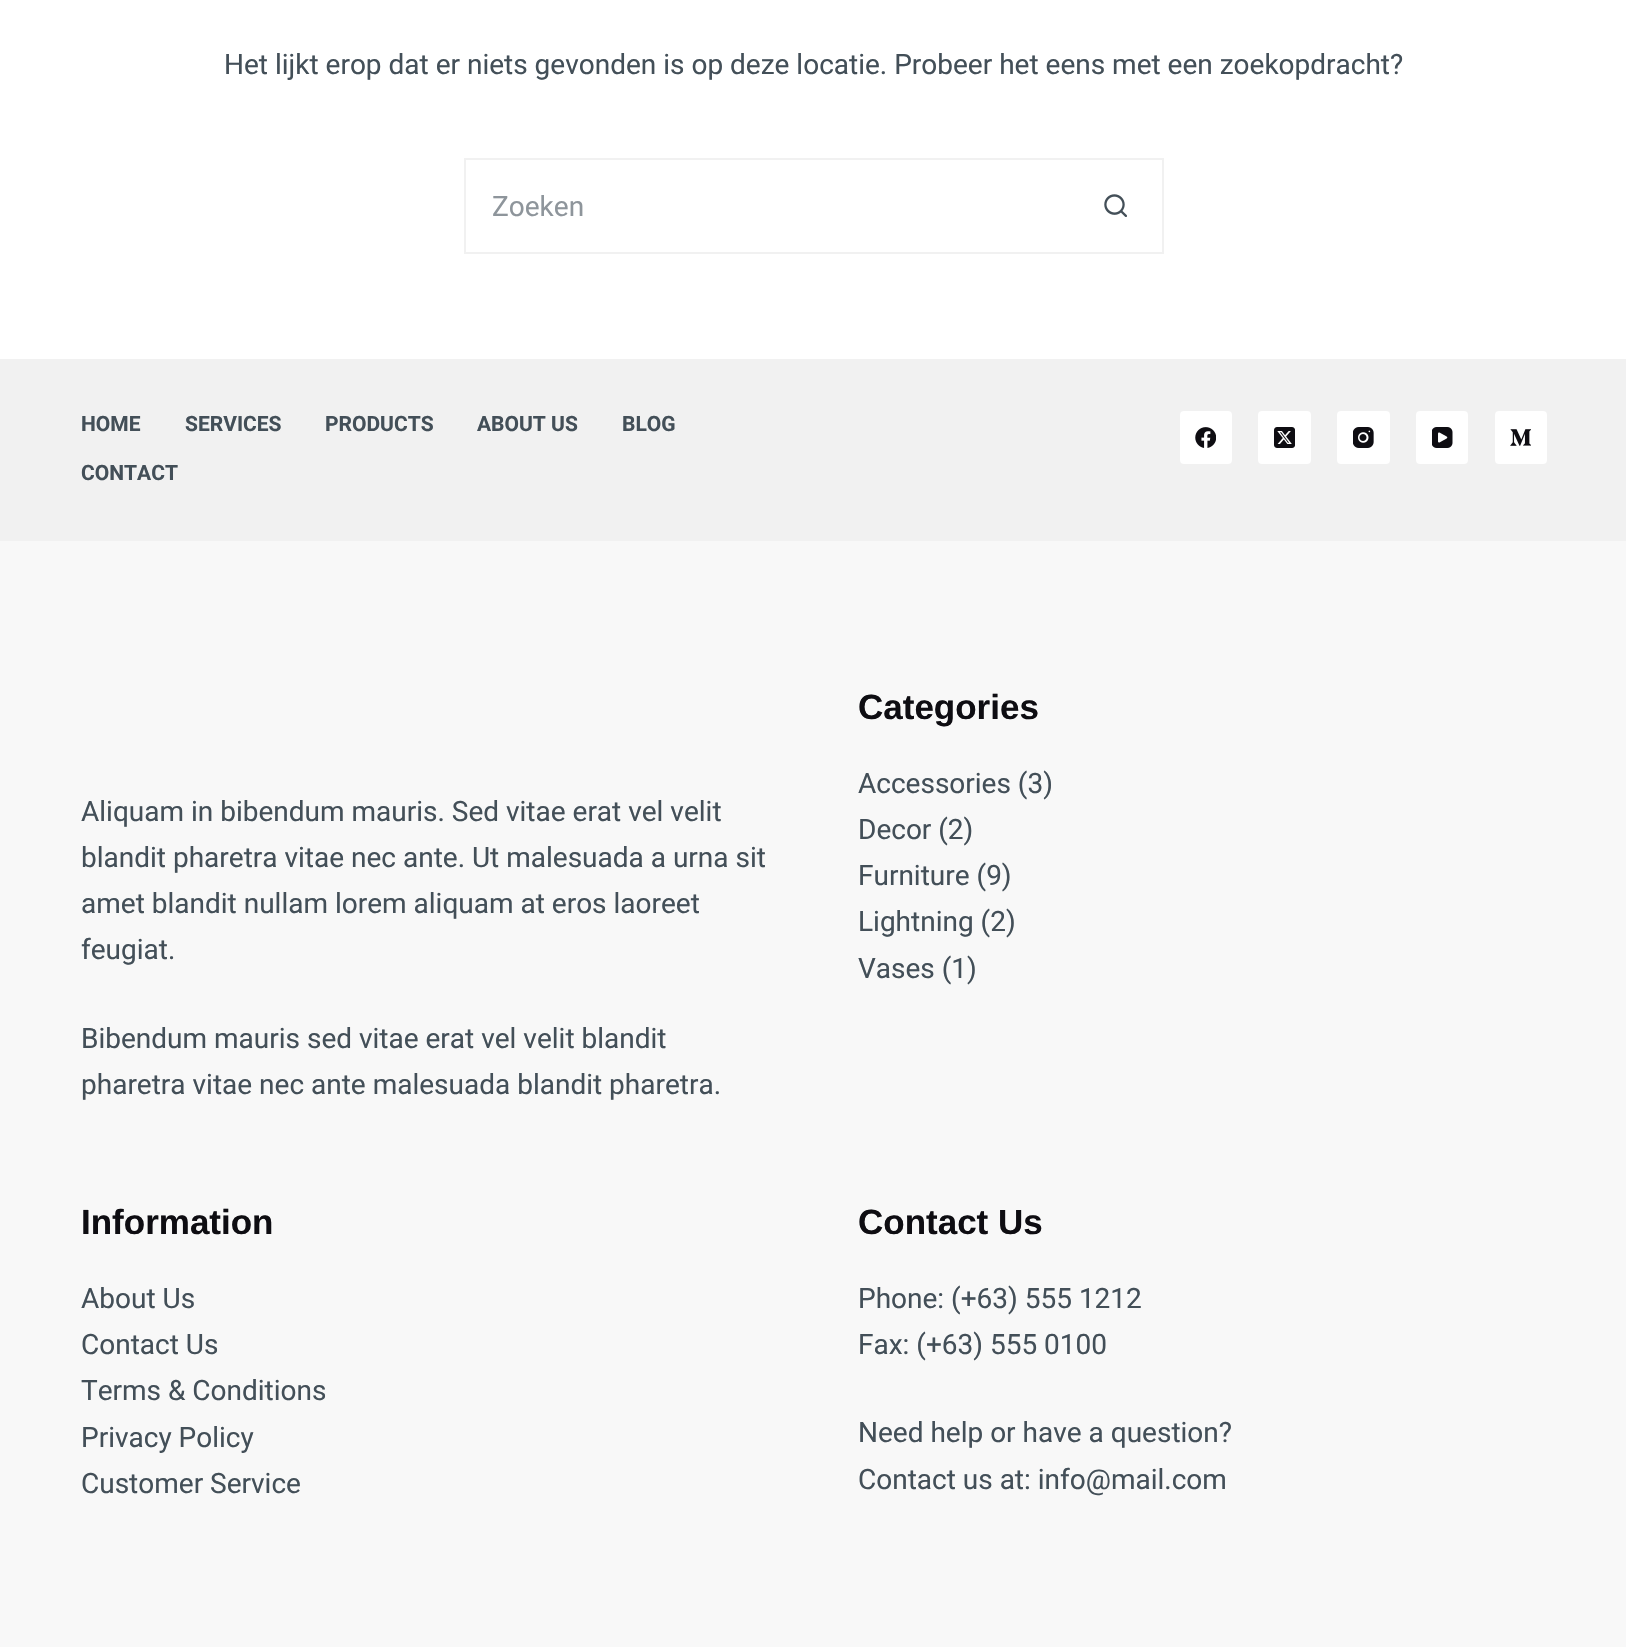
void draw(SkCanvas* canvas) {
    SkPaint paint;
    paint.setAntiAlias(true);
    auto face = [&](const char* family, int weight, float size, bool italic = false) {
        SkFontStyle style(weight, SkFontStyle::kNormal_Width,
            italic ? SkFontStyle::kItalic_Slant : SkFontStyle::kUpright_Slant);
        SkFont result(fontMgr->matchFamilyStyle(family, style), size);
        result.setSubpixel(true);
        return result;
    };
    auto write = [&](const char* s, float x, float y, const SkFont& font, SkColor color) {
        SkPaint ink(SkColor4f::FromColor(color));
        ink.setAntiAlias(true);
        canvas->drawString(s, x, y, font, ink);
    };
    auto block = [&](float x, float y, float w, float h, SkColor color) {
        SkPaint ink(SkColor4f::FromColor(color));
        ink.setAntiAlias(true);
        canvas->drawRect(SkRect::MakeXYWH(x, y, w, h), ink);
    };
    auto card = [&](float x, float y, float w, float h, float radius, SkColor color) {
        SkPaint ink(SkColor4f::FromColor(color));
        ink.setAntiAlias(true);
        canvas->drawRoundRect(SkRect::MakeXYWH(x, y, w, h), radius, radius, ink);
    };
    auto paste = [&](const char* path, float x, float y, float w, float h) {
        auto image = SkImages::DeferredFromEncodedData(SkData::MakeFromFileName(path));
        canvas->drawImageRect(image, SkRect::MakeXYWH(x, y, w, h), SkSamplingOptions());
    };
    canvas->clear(SK_ColorWHITE);
    auto kFont1 = face("Roboto", 400, 28);
    write("Het lijkt erop dat er niets gevonden is op deze locatie. Probeer het eens met een zoekopdracht?", 224, 74, kFont1, SkColorSetRGB(67, 79, 88));
    block(464, 158, 700, 2, SkColorSetRGB(241, 241, 241));
    block(464, 252, 604, 2, SkColorSetRGB(241, 241, 241));
    block(464, 158, 2, 96, SkColorSetRGB(241, 241, 241));
    write("Zoeken", 492, 216, kFont1, SkColorSetRGB(142, 149, 155));
    block(1162, 158, 2, 96, SkColorSetRGB(241, 241, 241));
    block(1068, 252, 96, 2, SkColorSetRGB(241, 241, 241));
    paste("pic1.png", 1104, 194, 23, 23);
    block(0, 541, 1626, 1106, SkColorSetRGB(248, 248, 248));
    block(0, 359, 1626, 182, SkColorSetRGB(241, 241, 241));
    auto kFont2 = face("Roboto", 700, 21);
    write("HOME", 81, 431, kFont2, SkColorSetRGB(67, 79, 88));
    write("SERVICES", 185, 431, kFont2, SkColorSetRGB(67, 79, 88));
    write("PRODUCTS", 325, 431, kFont2, SkColorSetRGB(67, 79, 88));
    write("ABOUT US", 477, 431, kFont2, SkColorSetRGB(67, 79, 88));
    write("BLOG", 622, 431, kFont2, SkColorSetRGB(67, 79, 88));
    write("CONTACT", 81, 480, kFont2, SkColorSetRGB(67, 79, 88));
    card(1180, 411, 52, 53, 4, SK_ColorWHITE);
    paste("pic2.png", 1195, 427, 21, 21);
    card(1258, 411, 53, 53, 4, SK_ColorWHITE);
    paste("pic3.png", 1274, 427, 21, 21);
    card(1337, 411, 53, 53, 4, SK_ColorWHITE);
    paste("pic4.png", 1353, 427, 21, 21);
    card(1416, 411, 52, 53, 4, SK_ColorWHITE);
    paste("pic5.png", 1432, 427, 21, 21);
    card(1495, 411, 52, 53, 4, SK_ColorWHITE);
    paste("pic6.png", 1510, 429, 21, 17);
    write("Aliquam in bibendum mauris. Sed vitae erat vel velit", 81, 821, kFont1, SkColorSetRGB(67, 79, 88));
    write("blandit pharetra vitae nec ante. Ut malesuada a urna sit", 81, 867, kFont1, SkColorSetRGB(67, 79, 88));
    write("amet blandit nullam lorem aliquam at eros laoreet", 81, 913, kFont1, SkColorSetRGB(67, 79, 88));
    write("feugiat.", 81, 959, kFont1, SkColorSetRGB(67, 79, 88));
    write("Bibendum mauris sed vitae erat vel velit blandit", 81, 1048, kFont1, SkColorSetRGB(67, 79, 88));
    write("pharetra vitae nec ante malesuada blandit pharetra.", 81, 1094, kFont1, SkColorSetRGB(67, 79, 88));
    auto kFont3 = face("Liberation Sans", 700, 35);
    write("Categories", 858, 719, kFont3, SkColorSetRGB(14, 13, 18));
    write("Accessories (3)", 858, 793, kFont1, SkColorSetRGB(67, 79, 88));
    write("Decor (2)", 858, 839, kFont1, SkColorSetRGB(67, 79, 88));
    write("Furniture (9)", 858, 885, kFont1, SkColorSetRGB(67, 79, 88));
    write("Lightning (2)", 858, 931, kFont1, SkColorSetRGB(67, 79, 88));
    write("Vases (1)", 858, 978, kFont1, SkColorSetRGB(67, 79, 88));
    write("Information", 81, 1234, kFont3, SkColorSetRGB(14, 13, 18));
    write("About Us", 81, 1308, kFont1, SkColorSetRGB(67, 79, 88));
    write("Contact Us", 81, 1354, kFont1, SkColorSetRGB(67, 79, 88));
    write("Terms & Conditions", 81, 1400, kFont1, SkColorSetRGB(67, 79, 88));
    write("Privacy Policy", 81, 1447, kFont1, SkColorSetRGB(67, 79, 88));
    write("Customer Service", 81, 1493, kFont1, SkColorSetRGB(67, 79, 88));
    write("Contact Us", 858, 1234, kFont3, SkColorSetRGB(14, 13, 18));
    write("Phone: (+63) 555 1212", 858, 1308, kFont1, SkColorSetRGB(67, 79, 88));
    write("Fax: (+63) 555 0100", 858, 1354, kFont1, SkColorSetRGB(67, 79, 88));
    write("Need help or have a question?", 858, 1442, kFont1, SkColorSetRGB(67, 79, 88));
    write("Contact us at: info@mail.com", 858, 1489, kFont1, SkColorSetRGB(67, 79, 88));
}
